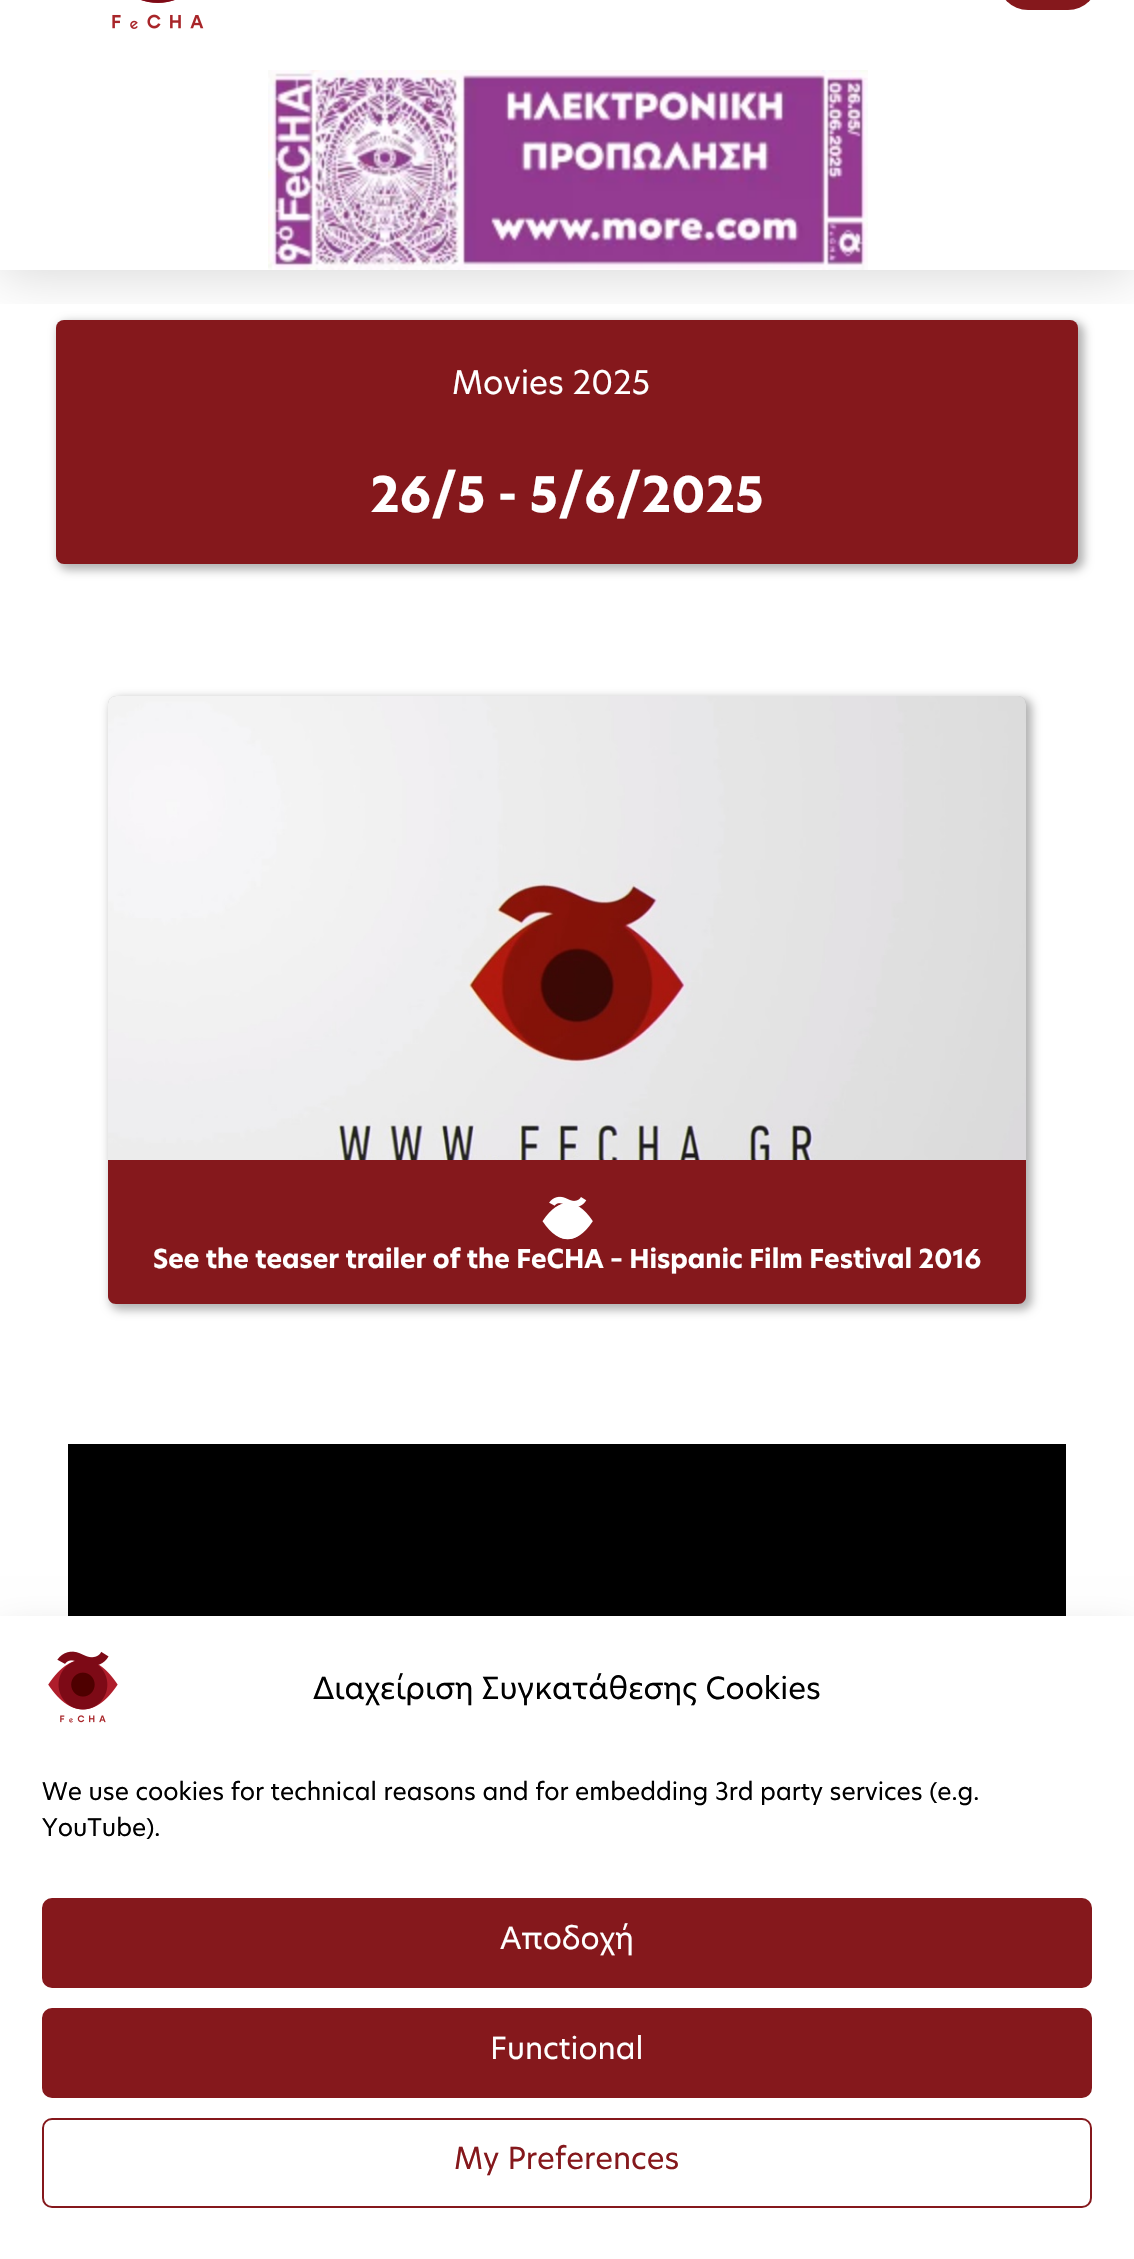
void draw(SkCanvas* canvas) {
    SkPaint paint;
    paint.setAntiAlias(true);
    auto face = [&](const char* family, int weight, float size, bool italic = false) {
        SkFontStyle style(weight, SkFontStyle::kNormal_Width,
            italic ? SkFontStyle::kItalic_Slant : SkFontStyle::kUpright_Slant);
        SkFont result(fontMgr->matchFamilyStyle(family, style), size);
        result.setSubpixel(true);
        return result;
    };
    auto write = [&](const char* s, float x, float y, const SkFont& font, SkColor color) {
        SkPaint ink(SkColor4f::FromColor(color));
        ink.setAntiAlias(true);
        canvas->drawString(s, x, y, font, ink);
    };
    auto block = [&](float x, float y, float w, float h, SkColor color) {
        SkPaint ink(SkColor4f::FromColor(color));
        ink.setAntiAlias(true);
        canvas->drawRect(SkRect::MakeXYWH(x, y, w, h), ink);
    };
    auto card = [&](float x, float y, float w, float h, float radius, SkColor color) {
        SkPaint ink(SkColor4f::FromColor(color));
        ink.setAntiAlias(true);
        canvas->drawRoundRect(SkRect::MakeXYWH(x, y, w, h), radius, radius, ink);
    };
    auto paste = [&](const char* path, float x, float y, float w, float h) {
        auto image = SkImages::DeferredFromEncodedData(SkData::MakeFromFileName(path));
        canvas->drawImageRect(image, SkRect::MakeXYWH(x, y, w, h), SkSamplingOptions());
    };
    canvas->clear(SK_ColorWHITE);
    paint.setColor(SkColorSetARGB(77, 0, 0, 0));
    paint.setMaskFilter(SkMaskFilter::MakeBlur(kNormal_SkBlurStyle, 5));
    canvas->drawRoundRect(SkRect::MakeXYWH(58, 322, 1026, 248), 10, 10, paint);
    paint.setMaskFilter(nullptr);
    card(56, 320, 1022, 244, 8, SkColorSetRGB(133, 24, 28));
    canvas->save();
    canvas->clipRect(SkRect::MakeXYWH(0, 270, 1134, 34));
    paint.setColor(SkColorSetARGB(38, 0, 0, 0));
    paint.setMaskFilter(SkMaskFilter::MakeBlur(kNormal_SkBlurStyle, 25));
    canvas->drawRect(SkRect::MakeXYWH(0, 76, 1134, 200), paint);
    paint.setMaskFilter(nullptr);
    canvas->restore();
    block(0, 38, 1134, 32, SK_ColorWHITE);
    card(998, -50, 100, 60, 50, SkColorSetRGB(133, 24, 28));
    paste("pic1.png", 112, 0, 92, 29);
    paste("pic2.png", 268, 70, 600, 200);
    auto kFont1 = face("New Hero", 400, 32);
    write("Movies 2025", 452, 394, kFont1, SK_ColorWHITE);
    auto kFont2 = face("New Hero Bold", 700, 48);
    write("26/5 - 5/6/2025", 370, 512, kFont2, SK_ColorWHITE);
    paint.setColor(SkColorSetARGB(77, 0, 0, 0));
    paint.setMaskFilter(SkMaskFilter::MakeBlur(kNormal_SkBlurStyle, 5));
    canvas->drawRoundRect(SkRect::MakeXYWH(110, 698, 922, 612), 10, 10, paint);
    paint.setMaskFilter(nullptr);
    card(108, 696, 918, 608, 8, SkColorSetARGB(26, 0, 0, 0));
    paste("pic3.png", 108, 696, 918, 608);
    paint.setColor(SkColorSetRGB(133, 24, 28));
    canvas->drawPath(SkPathBuilder().moveTo(108, 1160).lineTo(1026, 1160).lineTo(1026, 1296).cubicTo(1026, 1300.5f, 1022.5f, 1304, 1018, 1304).lineTo(116, 1304).cubicTo(111.5f, 1304, 108, 1300.5f, 108, 1296).close().detach(), paint);
    paste("pic4.png", 542, 1196, 51, 44);
    auto kFont3 = face("New Hero Bold", 700, 25.6f);
    write("See the teaser trailer of the FeCHA – Hispanic Film Festival 2016", 153, 1268, kFont3, SK_ColorWHITE);
    paste("pic5.png", 68, 1444, 998, 172);
    paint.setColor(SkColorSetARGB(48, 0, 0, 0));
    paint.setMaskFilter(SkMaskFilter::MakeBlur(kNormal_SkBlurStyle, 20));
    canvas->drawRect(SkRect::MakeXYWH(0, 1636, 1134, 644), paint);
    paint.setMaskFilter(nullptr);
    block(0, 1616, 1134, 643, SK_ColorWHITE);
    paste("pic6.png", 48, 1651, 70, 72);
    auto kFont4 = face("New Hero", 400, 30);
    write("Διαχείριση Συγκατάθεσης Cookies", 313, 1699, kFont4, SK_ColorBLACK);
    auto kFont5 = face("New Hero", 400, 24);
    write("We use cookies for technical reasons and for embedding 3rd party services (e.g.", 42, 1800, kFont5, SK_ColorBLACK);
    write("YouTube).", 42, 1836, kFont5, SK_ColorBLACK);
    paint.setColor(SkColorSetRGB(133, 24, 28));
    canvas->drawRoundRect(SkRect::MakeXYWH(43, 1899, 1048, 88), 9, 9, paint);
    paint.setStyle(SkPaint::kStroke_Style);
    paint.setStrokeWidth(2);
    canvas->drawRoundRect(SkRect::MakeXYWH(43, 1899, 1048, 88), 9, 9, paint);
    write("Αποδοχή", 500, 1949, kFont4, SK_ColorWHITE);
    paint.setStyle(SkPaint::kFill_Style);
    canvas->drawRoundRect(SkRect::MakeXYWH(43, 2009, 1048, 88), 9, 9, paint);
    paint.setStyle(SkPaint::kStroke_Style);
    canvas->drawRoundRect(SkRect::MakeXYWH(43, 2009, 1048, 88), 9, 9, paint);
    write("Functional", 490, 2059, kFont4, SK_ColorWHITE);
    canvas->drawRoundRect(SkRect::MakeXYWH(43, 2119, 1048, 88), 9, 9, paint);
    write("My Preferences", 454, 2169, kFont4, SkColorSetRGB(133, 24, 28));
}
